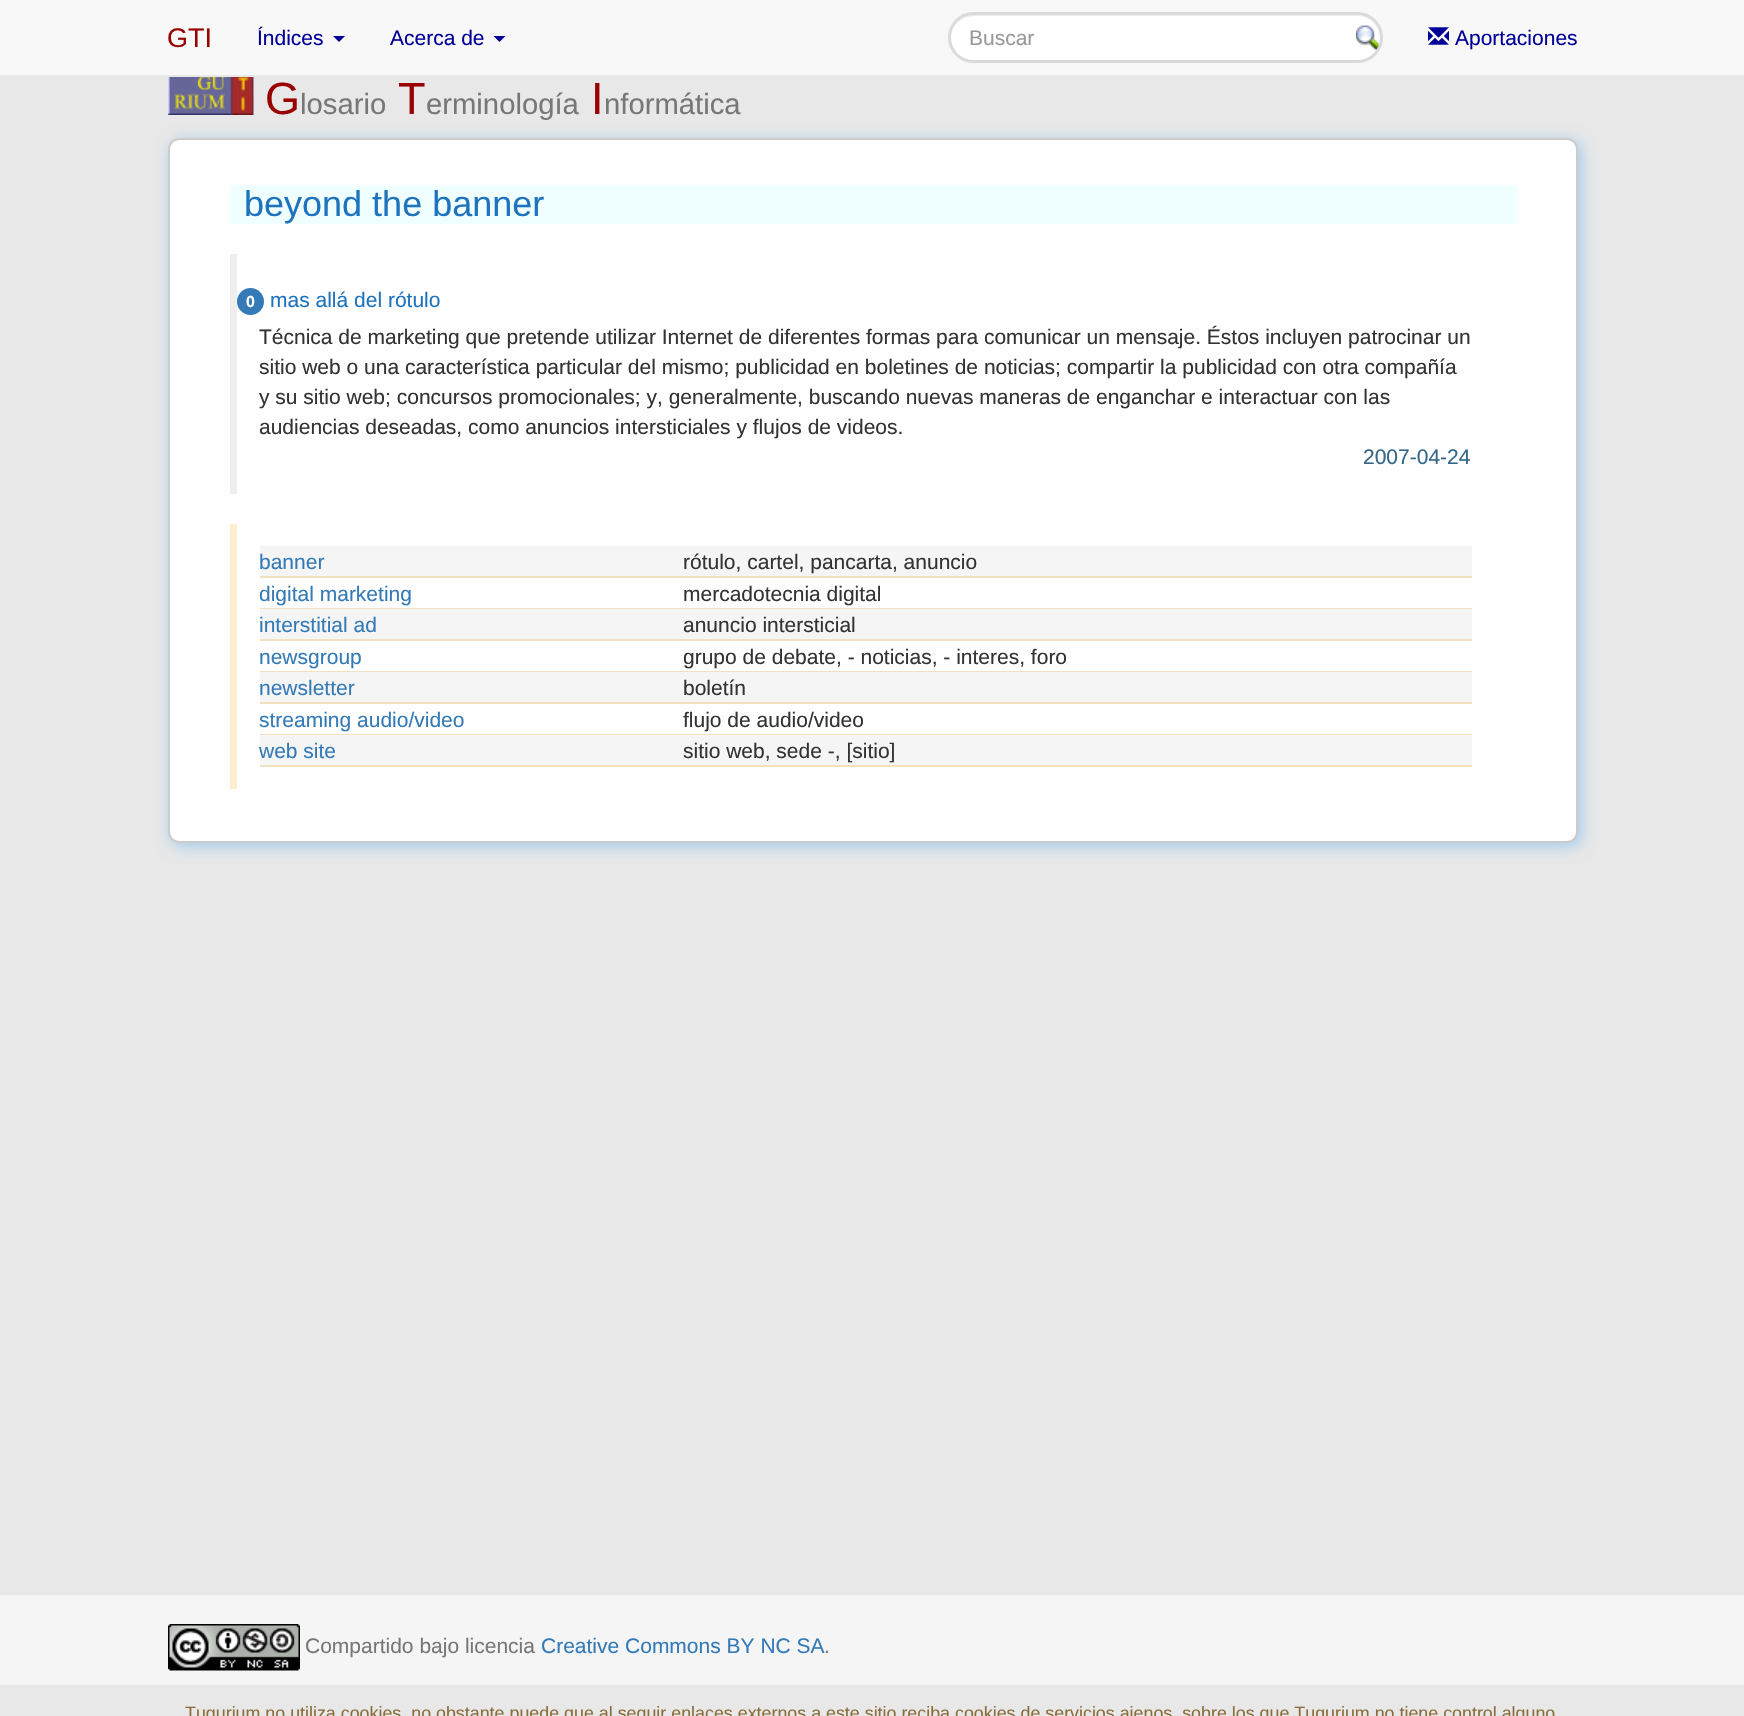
void draw(SkCanvas* canvas) {
    SkPaint paint;
    paint.setAntiAlias(true);
    auto face = [&](const char* family, int weight, float size, bool italic = false) {
        SkFontStyle style(weight, SkFontStyle::kNormal_Width,
            italic ? SkFontStyle::kItalic_Slant : SkFontStyle::kUpright_Slant);
        SkFont result(fontMgr->matchFamilyStyle(family, style), size);
        result.setSubpixel(true);
        return result;
    };
    auto write = [&](const char* s, float x, float y, const SkFont& font, SkColor color) {
        SkPaint ink(SkColor4f::FromColor(color));
        ink.setAntiAlias(true);
        canvas->drawString(s, x, y, font, ink);
    };
    auto block = [&](float x, float y, float w, float h, SkColor color) {
        SkPaint ink(SkColor4f::FromColor(color));
        ink.setAntiAlias(true);
        canvas->drawRect(SkRect::MakeXYWH(x, y, w, h), ink);
    };
    auto card = [&](float x, float y, float w, float h, float radius, SkColor color) {
        SkPaint ink(SkColor4f::FromColor(color));
        ink.setAntiAlias(true);
        canvas->drawRoundRect(SkRect::MakeXYWH(x, y, w, h), radius, radius, ink);
    };
    auto paste = [&](const char* path, float x, float y, float w, float h) {
        auto image = SkImages::DeferredFromEncodedData(SkData::MakeFromFileName(path));
        canvas->drawImageRect(image, SkRect::MakeXYWH(x, y, w, h), SkSamplingOptions());
    };
    canvas->clear(SkColorSetRGB(232, 232, 232));
    block(0, 0, 1744, 75, SkColorSetRGB(248, 248, 248));
    auto kFont1 = face("Liberation Sans", 400, 27);
    write("GTI", 167, 47, kFont1, SkColorSetRGB(153, 0, 0));
    auto kFont2 = face("Liberation Sans", 400, 21);
    write("Índices", 257, 45, kFont2, SkColorSetRGB(0, 0, 153));
    paint.setColor(SkColorSetRGB(0, 0, 153));
    canvas->drawPath(SkPathBuilder().moveTo(333, 36).lineTo(345, 36).lineTo(339, 42).close().detach(), paint);
    write("Acerca de", 390, 45, kFont2, SkColorSetRGB(0, 0, 153));
    canvas->drawPath(SkPathBuilder().moveTo(493.5f, 36).lineTo(505.5f, 36).lineTo(499.5f, 42).close().detach(), paint);
    card(948, 12, 435, 51, 25.5f, SK_ColorWHITE);
    paste("pic1.png", 1356, 25, 24, 25);
    paint.setColor(SkColorSetRGB(236, 236, 236));
    canvas->drawPath(SkPathBuilder().moveTo(974, 16).lineTo(1358, 16).cubicTo(1370, 16, 1380, 27, 1380, 38).cubicTo(1380, 26, 1370, 15, 1358, 15).lineTo(974, 15).cubicTo(961, 15, 951, 26, 951, 38).cubicTo(951, 27, 961, 16, 974, 16).close().detach(), paint);
    paint.setStyle(SkPaint::kStroke_Style);
    paint.setStrokeWidth(3);
    paint.setColor(SkColorSetRGB(218, 218, 218));
    canvas->drawRoundRect(SkRect::MakeXYWH(949.5f, 13.5f, 432, 48), 24, 24, paint);
    write("Buscar", 969, 45, kFont2, SkColorSetRGB(153, 153, 153));
    paste("pic2.png", 1428, 27, 21, 18);
    write("Aportaciones", 1455, 45, kFont2, SkColorSetRGB(0, 0, 153));
    paste("pic3.png", 168, 77, 86, 38);
    auto kFont3 = face("Liberation Sans", 400, 45);
    write("G", 265, 114, kFont3, SkColorSetRGB(153, 0, 0));
    auto kFont4 = face("Liberation Sans", 400, 29.25f);
    write("losario", 300, 114, kFont4, SkColorSetRGB(119, 119, 119));
    write("T", 398, 114, kFont3, SkColorSetRGB(153, 0, 0));
    write("erminología", 426, 114, kFont4, SkColorSetRGB(119, 119, 119));
    write("I", 591, 114, kFont3, SkColorSetRGB(153, 0, 0));
    write("nformática", 604, 114, kFont4, SkColorSetRGB(119, 119, 119));
    paint.setStyle(SkPaint::kFill_Style);
    paint.setColor(SkColorSetRGB(158, 202, 237));
    paint.setMaskFilter(SkMaskFilter::MakeBlur(kNormal_SkBlurStyle, 7.5f));
    canvas->drawRoundRect(SkRect::MakeXYWH(171, 141, 1410, 705), 11, 11, paint);
    paint.setMaskFilter(nullptr);
    paint.setColor(SkColorSetRGB(254, 254, 254));
    canvas->drawRoundRect(SkRect::MakeXYWH(169, 139, 1408, 703), 10, 10, paint);
    paint.setStyle(SkPaint::kStroke_Style);
    paint.setStrokeWidth(2);
    paint.setColor(SkColorSetRGB(204, 204, 204));
    canvas->drawRoundRect(SkRect::MakeXYWH(169, 139, 1408, 703), 10, 10, paint);
    block(230, 185, 1287, 39, SkColorSetRGB(240, 255, 255));
    auto kFont5 = face("Liberation Sans", 400, 36);
    write("beyond the banner", 244, 216, kFont5, SkColorSetRGB(30, 115, 190));
    block(230, 254, 7, 240, SkColorSetRGB(238, 238, 238));
    paint.setStyle(SkPaint::kFill_Style);
    paint.setColor(SkColorSetRGB(51, 122, 183));
    canvas->drawCircle(250.5f, 301.5f, 13.5f, paint);
    auto kFont6 = face("Liberation Sans", 700, 16);
    write("0", 246, 307, kFont6, SK_ColorWHITE);
    write("mas allá del rótulo", 270, 307, kFont2, SkColorSetRGB(30, 115, 190));
    write("Técnica de marketing que pretende utilizar Internet de diferentes formas para comunicar un mensaje. Éstos incluyen patrocinar un", 259, 344, kFont2, SkColorSetRGB(51, 51, 51));
    write("sitio web o una característica particular del mismo; publicidad en boletines de noticias; compartir la publicidad con otra compañía", 259, 374, kFont2, SkColorSetRGB(51, 51, 51));
    write("y su sitio web; concursos promocionales; y, generalmente, buscando nuevas maneras de enganchar e interactuar con las", 259, 404, kFont2, SkColorSetRGB(51, 51, 51));
    write("audiencias deseadas, como anuncios intersticiales y flujos de videos.", 259, 434, kFont2, SkColorSetRGB(51, 51, 51));
    write("2007-04-24", 1363, 464, kFont2, SkColorSetRGB(51, 102, 136));
    block(230, 524, 7, 265, SkColorSetRGB(255, 238, 204));
    block(260, 546, 1212, 30, SkColorSetRGB(245, 245, 245));
    block(260, 576, 1212, 2, SkColorSetRGB(242, 225, 191));
    write("banner", 259, 569, kFont2, SkColorSetRGB(51, 122, 183));
    write("rótulo, cartel, pancarta, anuncio", 683, 569, kFont2, SkColorSetRGB(51, 51, 51));
    block(260, 608, 1212, 1, SkColorSetRGB(242, 225, 191));
    write("digital marketing", 259, 601, kFont2, SkColorSetRGB(51, 122, 183));
    write("mercadotecnia digital", 683, 601, kFont2, SkColorSetRGB(51, 51, 51));
    block(260, 609, 1212, 30, SkColorSetRGB(245, 245, 245));
    block(260, 639, 1212, 2, SkColorSetRGB(242, 225, 191));
    write("interstitial ad", 259, 632, kFont2, SkColorSetRGB(51, 122, 183));
    write("anuncio intersticial", 683, 632, kFont2, SkColorSetRGB(51, 51, 51));
    block(260, 671, 1212, 1, SkColorSetRGB(242, 225, 191));
    write("newsgroup", 259, 664, kFont2, SkColorSetRGB(51, 122, 183));
    write("grupo de debate, - noticias, - interes, foro", 683, 664, kFont2, SkColorSetRGB(51, 51, 51));
    block(260, 672, 1212, 30, SkColorSetRGB(245, 245, 245));
    block(260, 702, 1212, 2, SkColorSetRGB(242, 225, 191));
    write("newsletter", 259, 695, kFont2, SkColorSetRGB(51, 122, 183));
    write("boletín", 683, 695, kFont2, SkColorSetRGB(51, 51, 51));
    block(260, 734, 1212, 1, SkColorSetRGB(242, 225, 191));
    write("streaming audio/video", 259, 727, kFont2, SkColorSetRGB(51, 122, 183));
    write("flujo de audio/video", 683, 727, kFont2, SkColorSetRGB(51, 51, 51));
    block(260, 735, 1212, 30, SkColorSetRGB(245, 245, 245));
    block(260, 765, 1212, 2, SkColorSetRGB(242, 225, 191));
    write("web site", 259, 758, kFont2, SkColorSetRGB(51, 122, 183));
    write("sitio web, sede -, [sitio]", 683, 758, kFont2, SkColorSetRGB(51, 51, 51));
    block(0, 1595, 1744, 90, SkColorSetRGB(245, 245, 245));
    paste("pic4.png", 168, 1624, 132, 47);
    write("Compartido bajo licencia", 305, 1653, kFont2, SkColorSetRGB(119, 119, 119));
    write("Creative Commons BY NC SA", 541, 1653, kFont2, SkColorSetRGB(51, 122, 183));
    write(".", 824, 1653, kFont2, SkColorSetRGB(119, 119, 119));
    auto kFont7 = face("Liberation Sans", 400, 17.85f);
    write("Tugurium no utiliza cookies, no obstante puede que al seguir enlaces externos a este sitio reciba cookies de servicios ajenos, sobre los que Tugurium no tiene control alguno", 185, 1719, kFont7, SkColorSetRGB(138, 109, 59));
}
